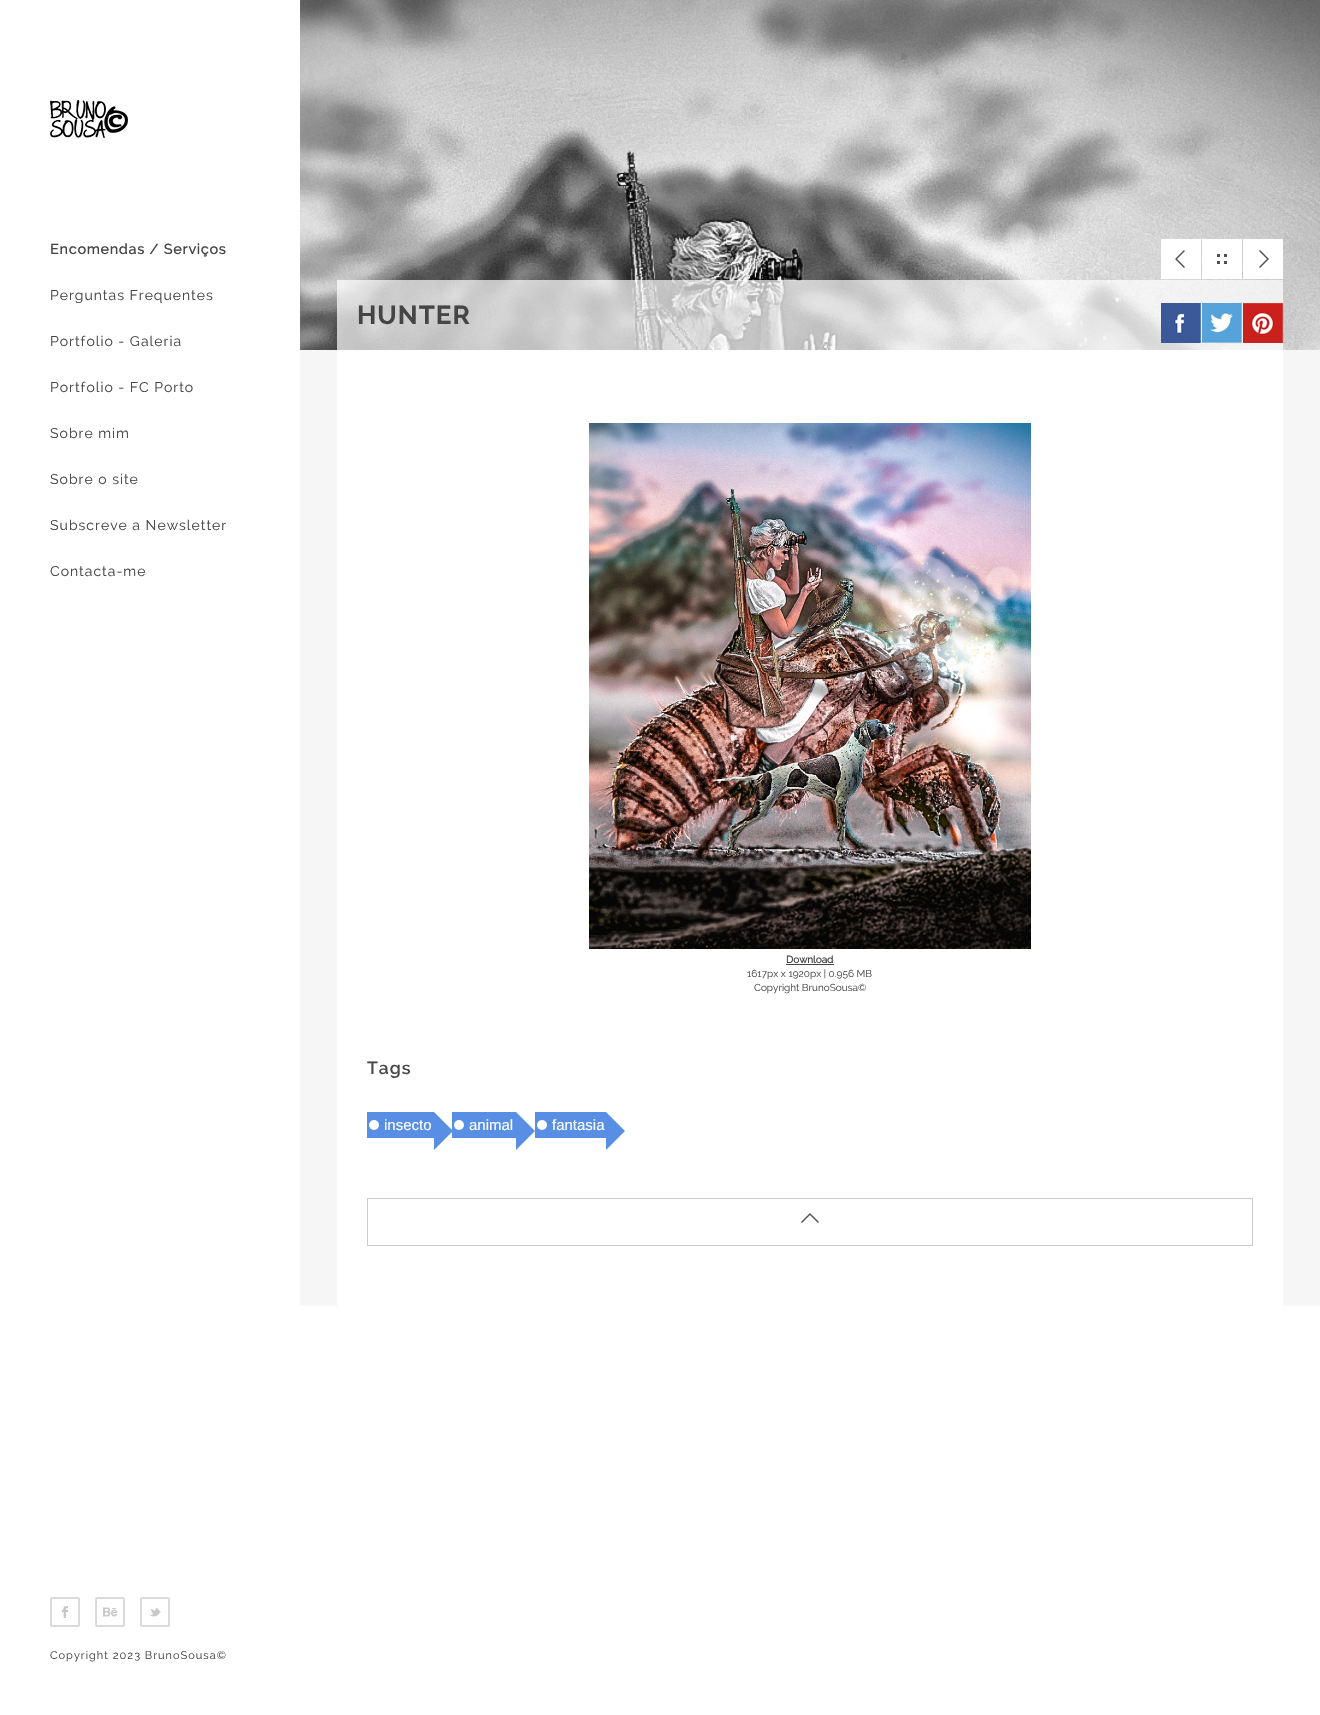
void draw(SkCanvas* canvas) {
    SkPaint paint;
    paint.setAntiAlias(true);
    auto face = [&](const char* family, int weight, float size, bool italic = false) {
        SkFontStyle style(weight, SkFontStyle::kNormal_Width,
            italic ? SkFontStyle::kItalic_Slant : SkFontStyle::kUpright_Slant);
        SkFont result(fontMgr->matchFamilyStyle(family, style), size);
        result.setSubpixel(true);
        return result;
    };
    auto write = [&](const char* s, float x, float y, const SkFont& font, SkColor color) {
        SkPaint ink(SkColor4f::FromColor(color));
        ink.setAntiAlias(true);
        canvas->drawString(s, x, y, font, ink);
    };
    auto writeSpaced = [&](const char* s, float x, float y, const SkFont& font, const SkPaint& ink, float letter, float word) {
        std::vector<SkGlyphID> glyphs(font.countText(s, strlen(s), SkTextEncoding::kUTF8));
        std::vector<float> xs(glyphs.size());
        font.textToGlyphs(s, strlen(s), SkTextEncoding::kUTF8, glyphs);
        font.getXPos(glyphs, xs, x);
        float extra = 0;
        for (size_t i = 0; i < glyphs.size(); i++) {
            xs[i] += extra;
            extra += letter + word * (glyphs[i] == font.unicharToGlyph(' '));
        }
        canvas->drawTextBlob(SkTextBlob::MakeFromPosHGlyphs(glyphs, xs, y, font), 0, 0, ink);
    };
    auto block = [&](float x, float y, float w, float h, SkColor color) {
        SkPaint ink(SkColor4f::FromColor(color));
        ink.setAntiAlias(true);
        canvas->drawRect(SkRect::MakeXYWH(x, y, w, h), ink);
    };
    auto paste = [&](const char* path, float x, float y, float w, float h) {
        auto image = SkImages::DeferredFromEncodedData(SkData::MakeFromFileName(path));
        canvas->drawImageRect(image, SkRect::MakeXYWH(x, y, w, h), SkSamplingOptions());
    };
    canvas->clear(SK_ColorWHITE);
    paste("pic1.png", 50, 100, 78, 38);
    auto kFont1 = face("Raleway", 700, 14);
    paint.setColor(SkColorSetRGB(69, 69, 69));
    writeSpaced("Encomendas / Serviços", 50, 254, kFont1, paint, 1, 0);
    auto kFont2 = face("Raleway", 400, 14);
    writeSpaced("Perguntas Frequentes", 50, 300, kFont2, paint, 1, 0);
    writeSpaced("Portfolio - Galeria", 50, 346, kFont2, paint, 1, 0);
    writeSpaced("Portfolio - FC Porto", 50, 392, kFont2, paint, 1, 0);
    writeSpaced("Sobre mim", 50, 438, kFont2, paint, 1, 0);
    writeSpaced("Sobre o site", 50, 484, kFont2, paint, 1, 0);
    writeSpaced("Subscreve a Newsletter", 50, 530, kFont2, paint, 1, 0);
    writeSpaced("Contacta-me", 50, 576, kFont2, paint, 1, 0);
    paste("pic2.png", 50, 1597, 30, 30);
    paste("pic3.png", 95, 1597, 30, 30);
    paste("pic4.png", 140, 1597, 30, 30);
    auto kFont3 = face("Raleway", 400, 11);
    writeSpaced("Copyright 2023 BrunoSousa©", 50, 1659, kFont3, paint, 1, 0);
    block(300, 350, 1020, 956, SkColorSetRGB(246, 246, 246));
    paste("pic5.png", 300, 0, 1020, 350);
    paste("pic6.png", 1161, 239, 40, 40);
    paste("pic7.png", 1202, 239, 40, 40);
    paste("pic8.png", 1243, 239, 40, 40);
    block(337, 280, 946, 70, SkColorSetARGB(179, 255, 255, 255));
    auto kFont4 = face("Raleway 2", 700, 26);
    writeSpaced("HUNTER", 357, 324, kFont4, paint, 1, 0);
    paste("pic9.png", 1161, 303, 40, 40);
    paste("pic10.png", 1202, 303, 40, 40);
    paste("pic11.png", 1243, 303, 40, 40);
    block(337, 350, 946, 956, SK_ColorWHITE);
    paste("pic12.png", 589, 423, 442, 526);
    auto kFont5 = face("Raleway", 700, 10);
    write("Download", 786, 963, kFont5, SkColorSetRGB(69, 69, 69));
    block(786, 964, 48, 1, SkColorSetRGB(69, 69, 69));
    auto kFont6 = face("Raleway", 400, 10);
    write("1617px x 1920px | 0.956 MB", 747, 977, kFont6, SkColorSetRGB(75, 72, 72));
    write("Copyright BrunoSousa©", 754, 991, kFont6, SkColorSetRGB(75, 72, 72));
    auto kFont7 = face("Raleway", 600, 17.5f);
    paint.setColor(SkColorSetRGB(75, 72, 72));
    writeSpaced("Tags", 367, 1074, kFont7, paint, 1, 0);
    block(367, 1112, 67, 26, SkColorSetRGB(88, 143, 229));
    paint.setColor(SK_ColorWHITE);
    canvas->drawCircle(374, 1125, 5, paint);
    auto kFont8 = face("Liberation Sans", 400, 15);
    write("insecto", 384, 1130, kFont8, SK_ColorWHITE);
    paint.setColor(SkColorSetRGB(88, 143, 229));
    canvas->drawPath(SkPathBuilder().moveTo(434, 1150).lineTo(434, 1112).lineTo(453, 1131).close().detach(), paint);
    block(452, 1112, 64, 26, SkColorSetRGB(88, 143, 229));
    paint.setColor(SK_ColorWHITE);
    canvas->drawCircle(459, 1125, 5, paint);
    write("animal", 469, 1130, kFont8, SK_ColorWHITE);
    paint.setColor(SkColorSetRGB(88, 143, 229));
    canvas->drawPath(SkPathBuilder().moveTo(516, 1150).lineTo(516, 1112).lineTo(535, 1131).close().detach(), paint);
    block(535, 1112, 71, 26, SkColorSetRGB(88, 143, 229));
    paint.setColor(SK_ColorWHITE);
    canvas->drawCircle(542, 1125, 5, paint);
    write("fantasia", 552, 1130, kFont8, SK_ColorWHITE);
    paint.setColor(SkColorSetRGB(88, 143, 229));
    canvas->drawPath(SkPathBuilder().moveTo(606, 1150).lineTo(606, 1112).lineTo(625, 1131).close().detach(), paint);
    paint.setStyle(SkPaint::kStroke_Style);
    paint.setStrokeWidth(1);
    paint.setColor(SkColorSetRGB(204, 204, 204));
    canvas->drawRect(SkRect::MakeXYWH(367.5f, 1198.5f, 885, 47), paint);
    paste("pic13.png", 801, 1213, 18, 10);
}
